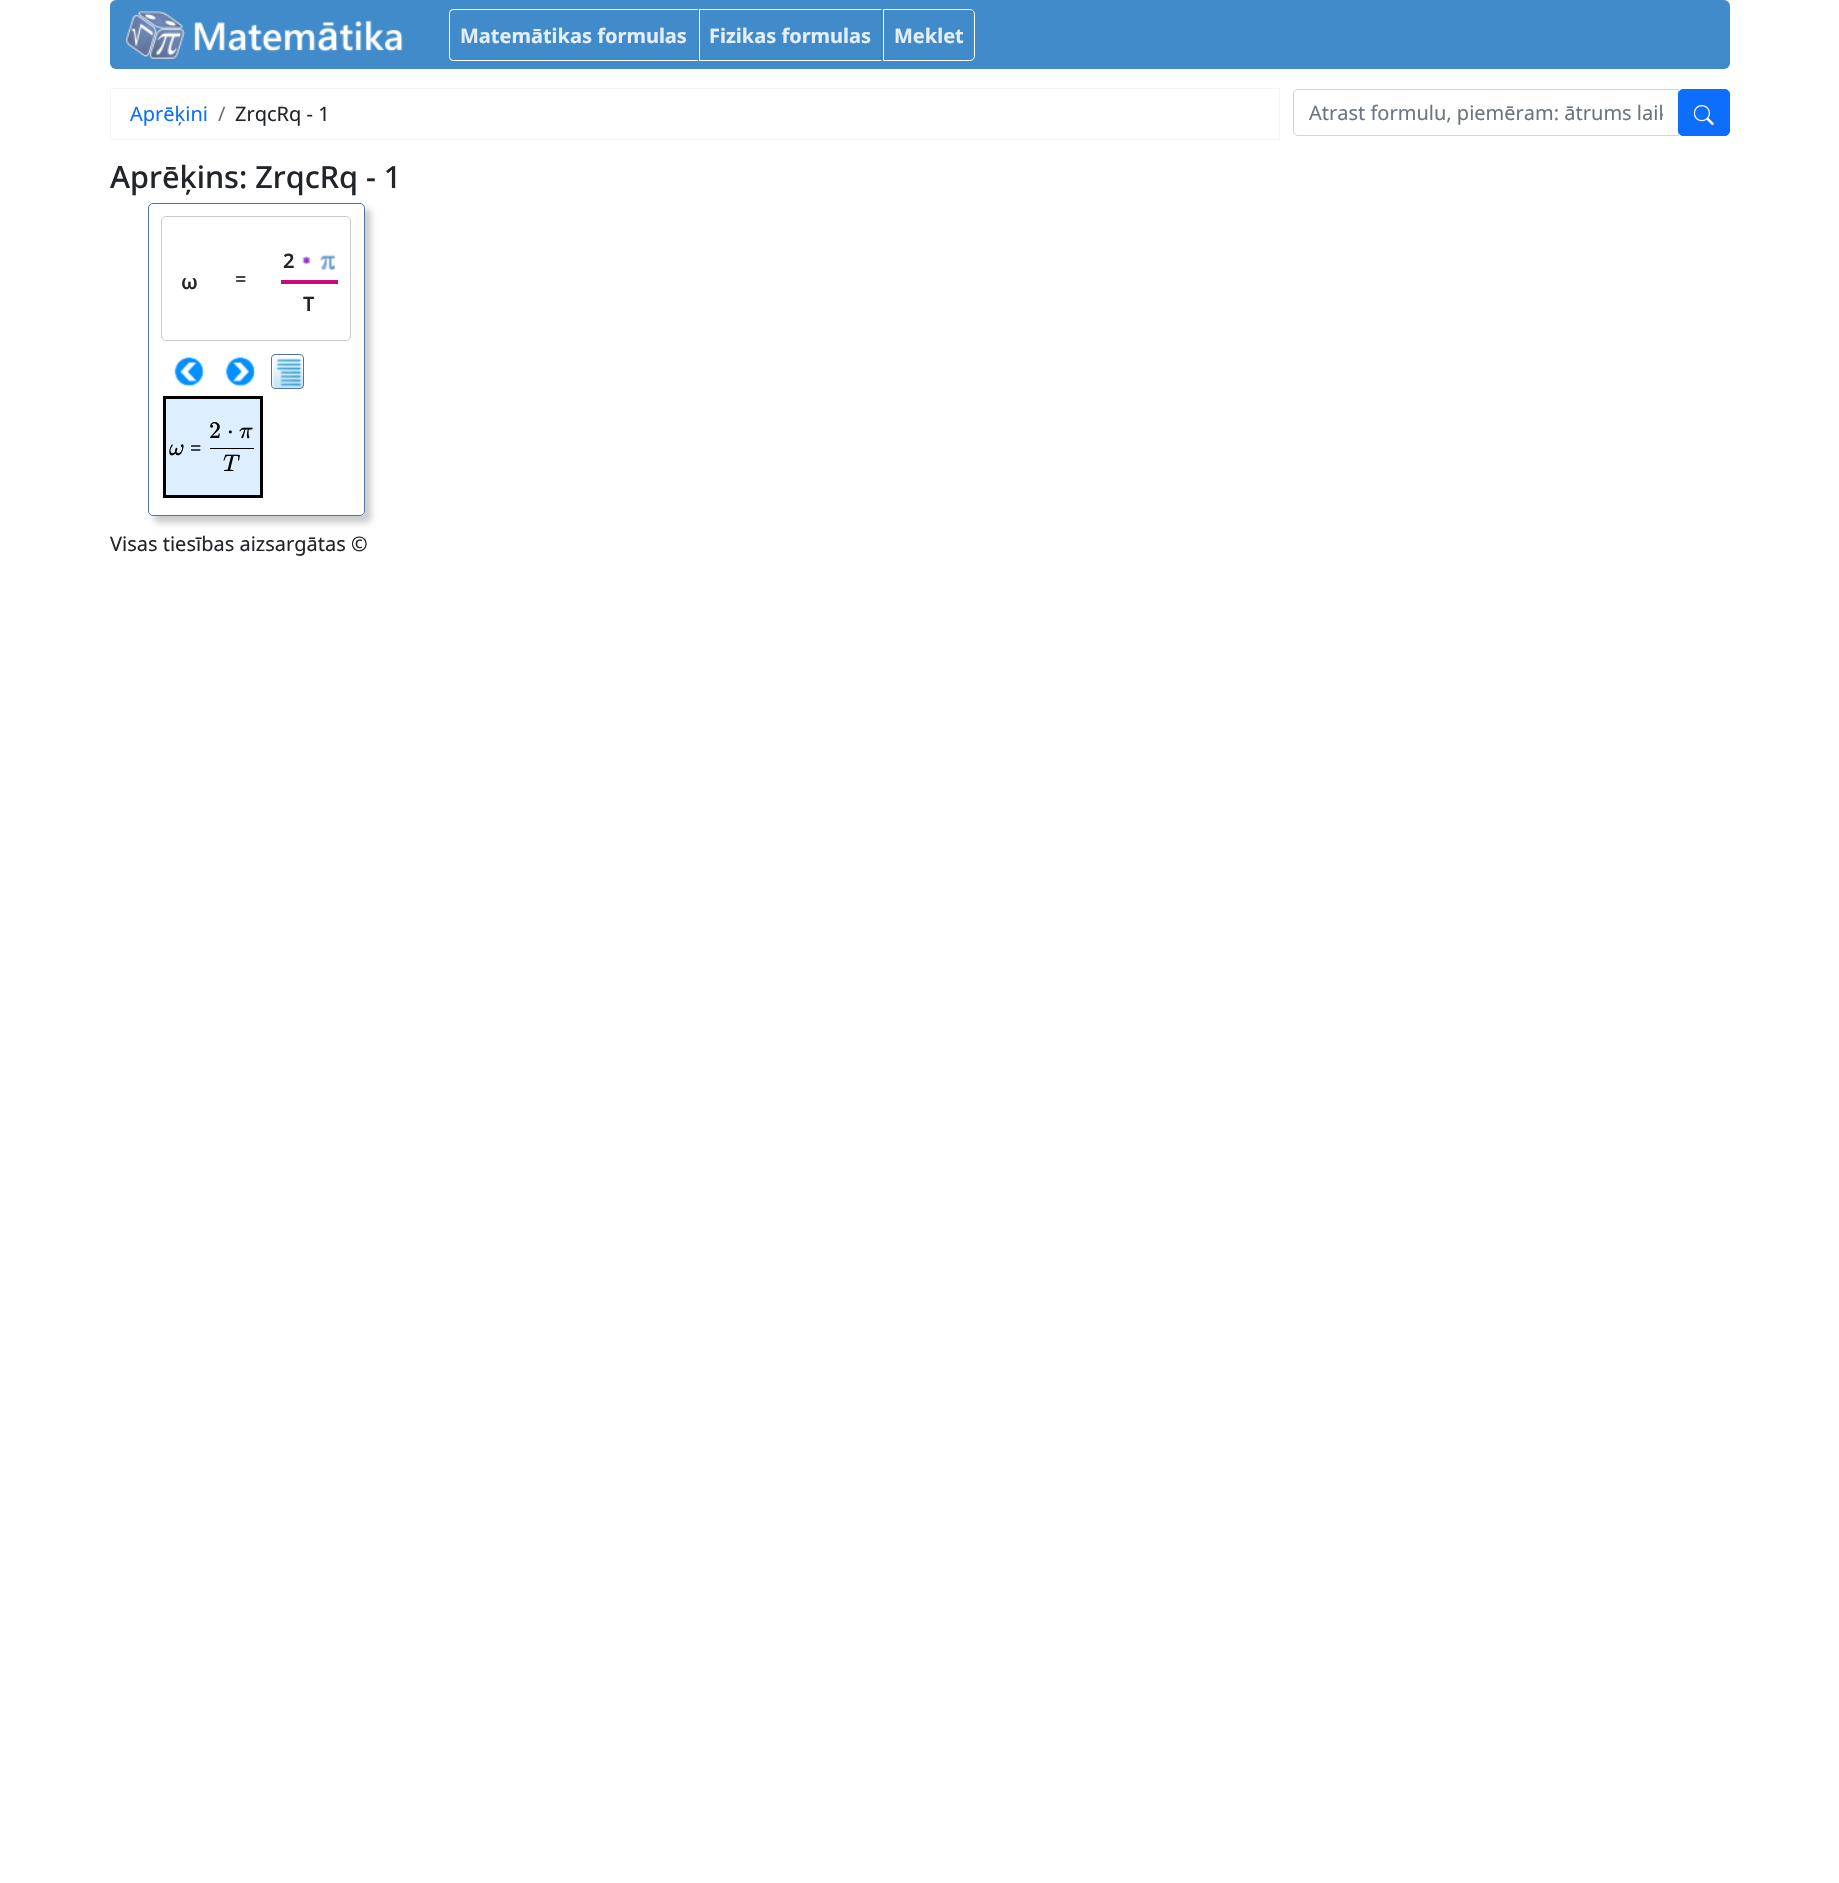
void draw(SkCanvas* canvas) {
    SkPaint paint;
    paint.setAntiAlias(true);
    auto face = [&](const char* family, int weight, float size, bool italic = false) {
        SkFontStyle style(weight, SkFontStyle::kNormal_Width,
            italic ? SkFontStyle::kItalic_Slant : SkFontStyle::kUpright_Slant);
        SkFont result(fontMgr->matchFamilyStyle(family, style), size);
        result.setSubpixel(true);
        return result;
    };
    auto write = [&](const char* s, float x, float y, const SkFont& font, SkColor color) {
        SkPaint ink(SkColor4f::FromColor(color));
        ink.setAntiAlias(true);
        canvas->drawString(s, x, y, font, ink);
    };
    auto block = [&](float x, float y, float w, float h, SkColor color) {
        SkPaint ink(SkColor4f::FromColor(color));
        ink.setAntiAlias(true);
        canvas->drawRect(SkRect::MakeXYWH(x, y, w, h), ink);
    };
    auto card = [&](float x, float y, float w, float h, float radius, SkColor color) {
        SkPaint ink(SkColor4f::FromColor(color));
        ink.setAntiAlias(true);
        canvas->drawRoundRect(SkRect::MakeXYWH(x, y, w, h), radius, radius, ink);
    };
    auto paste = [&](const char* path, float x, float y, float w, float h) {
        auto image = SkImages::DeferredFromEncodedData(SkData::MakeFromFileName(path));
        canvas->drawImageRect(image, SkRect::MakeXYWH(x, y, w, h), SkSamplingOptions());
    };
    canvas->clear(SK_ColorWHITE);
    card(110, 0, 1620, 69, 6, SkColorSetRGB(66, 139, 202));
    paste("pic1.png", 126, 11, 277, 48);
    paint.setColor(SK_ColorWHITE);
    canvas->drawPath(SkPathBuilder().moveTo(454, 9).cubicTo(452, 9, 451, 10, 450, 10).lineTo(451, 11).cubicTo(452, 10, 453, 10, 454, 10).lineTo(698, 10).lineTo(698, 9).close().detach(), paint);
    paint.setColor(SkColorSetRGB(59, 125, 182));
    canvas->drawPath(SkPathBuilder().moveTo(699, 61).lineTo(698, 60).lineTo(698, 10).lineTo(698, 9).close().detach(), paint);
    paint.setColor(SK_ColorWHITE);
    canvas->drawPath(SkPathBuilder().moveTo(698, 61).lineTo(454, 61).cubicTo(452, 61, 451, 60, 450, 60).lineTo(451, 59).cubicTo(452, 60, 453, 60, 454, 60).lineTo(698, 60).close().detach(), paint);
    canvas->drawPath(SkPathBuilder().moveTo(450, 10).cubicTo(450, 11, 449, 12, 449, 14).lineTo(449, 56).cubicTo(449, 58, 450, 59, 450, 60).lineTo(451, 59).cubicTo(450, 58, 450, 57, 450, 56).lineTo(450, 14).cubicTo(450, 13, 450, 12, 451, 11).close().detach(), paint);
    auto kFont1 = face("Noto Sans", 700, 20);
    write("Matemātikas formulas", 460, 43, kFont1, SkColorSetRGB(227, 238, 247));
    canvas->drawPath(SkPathBuilder().moveTo(699, 9).lineTo(882, 9).lineTo(881, 10).lineTo(700, 10).close().detach(), paint);
    paint.setColor(SkColorSetARGB(26, 0, 0, 0));
    canvas->drawPath(SkPathBuilder().moveTo(882, 9).lineTo(882, 61).lineTo(881, 60).lineTo(881, 10).close().detach(), paint);
    paint.setColor(SK_ColorWHITE);
    canvas->drawPath(SkPathBuilder().moveTo(882, 61).lineTo(699, 61).lineTo(700, 60).lineTo(881, 60).close().detach(), paint);
    block(699, 9, 1, 52, SK_ColorWHITE);
    write("Fizikas formulas", 709, 43, kFont1, SkColorSetRGB(227, 238, 247));
    paint.setStyle(SkPaint::kStroke_Style);
    paint.setStrokeWidth(1);
    canvas->drawPath(SkPathBuilder().moveTo(883.5f, 9.5f).lineTo(970, 9.5f).cubicTo(972.5f, 9.5f, 974.5f, 11.5f, 974.5f, 14).lineTo(974.5f, 56).cubicTo(974.5f, 58.5f, 972.5f, 60.5f, 970, 60.5f).lineTo(883.5f, 60.5f).close().detach(), paint);
    write("Meklet", 894, 43, kFont1, SkColorSetRGB(227, 238, 247));
    paint.setColor(SkColorSetRGB(245, 245, 245));
    canvas->drawRect(SkRect::MakeXYWH(110.5f, 88.5f, 1169, 51), paint);
    auto kFont2 = face("Noto Sans", 400, 20);
    write("Aprēķini", 130, 121, kFont2, SkColorSetRGB(13, 110, 253));
    write("/", 218, 121, kFont2, SkColorSetRGB(108, 117, 125));
    write("ZrqcRq - 1", 235, 121, kFont2, SkColorSetRGB(33, 37, 41));
    auto kFont3 = face("Noto Sans", 500, 30.6f);
    write("Aprēķins: ZrqcRq - 1", 110, 188, kFont3, SkColorSetRGB(33, 37, 41));
    canvas->save();
    canvas->clipPath(SkPathBuilder(SkPathFillType::kEvenOdd).moveTo(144, 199).lineTo(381, 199).lineTo(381, 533).lineTo(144, 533).close().moveTo(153, 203).lineTo(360, 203).cubicTo(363, 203, 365, 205, 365, 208).lineTo(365, 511).cubicTo(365, 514, 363, 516, 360, 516).lineTo(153, 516).cubicTo(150, 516, 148, 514, 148, 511).lineTo(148, 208).cubicTo(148, 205, 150, 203, 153, 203).close().detach(), true);
    paint.setStyle(SkPaint::kFill_Style);
    paint.setColor(SkColorSetRGB(204, 204, 204));
    paint.setMaskFilter(SkMaskFilter::MakeBlur(kNormal_SkBlurStyle, 3));
    canvas->drawRoundRect(SkRect::MakeXYWH(154, 209, 217, 314), 5, 5, paint);
    paint.setMaskFilter(nullptr);
    canvas->restore();
    paint.setStyle(SkPaint::kStroke_Style);
    paint.setColor(SkColorSetRGB(79, 117, 166));
    canvas->drawRoundRect(SkRect::MakeXYWH(148.5f, 203.5f, 216, 312), 4.5f, 4.5f, paint);
    paint.setColor(SkColorSetRGB(202, 202, 202));
    canvas->drawRoundRect(SkRect::MakeXYWH(161.5f, 216.5f, 189, 124), 4.5f, 4.5f, paint);
    auto kFont4 = face("Noto Sans", 600, 20);
    write("ω", 181, 289, kFont4, SkColorSetRGB(33, 37, 41));
    write("=", 235, 286, kFont2, SkColorSetRGB(33, 37, 41));
    write("2", 283, 268, kFont4, SkColorSetRGB(33, 37, 41));
    paste("pic2.png", 302, 256, 9, 9);
    paste("pic3.png", 320, 254, 16, 16);
    block(281, 280, 57, 4, SkColorSetRGB(201, 10, 128));
    write("T", 303, 311, kFont4, SkColorSetRGB(33, 37, 41));
    paste("pic4.png", 174, 356, 30, 31);
    paste("pic5.png", 225, 356, 30, 31);
    paste("pic6.png", 272, 358, 32, 31);
    paint.setColor(SkColorSetRGB(79, 117, 166));
    canvas->drawRoundRect(SkRect::MakeXYWH(271.5f, 354.5f, 32, 34), 3.5f, 3.5f, paint);
    paint.setStyle(SkPaint::kFill_Style);
    paint.setColor(SkColorSetRGB(221, 238, 255));
    canvas->drawRect(SkRect::MakeXYWH(164.5f, 397.5f, 97, 99), paint);
    paint.setStyle(SkPaint::kStroke_Style);
    paint.setStrokeWidth(3);
    paint.setColor(SK_ColorBLACK);
    canvas->drawRect(SkRect::MakeXYWH(164.5f, 397.5f, 97, 99), paint);
    auto kFont5 = face("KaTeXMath", 400, 24, true);
    write("ω", 169, 455, kFont5, SK_ColorBLACK);
    write("=", 190, 455, kFont2, SkColorSetRGB(33, 37, 41));
    auto kFont6 = face("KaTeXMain", 400, 24);
    write("2", 209, 438, kFont6, SK_ColorBLACK);
    write("⋅", 227, 438, kFont6, SK_ColorBLACK);
    write("π", 239, 438, kFont5, SK_ColorBLACK);
    block(210, 448, 44, 1, SK_ColorBLACK);
    write("T", 223, 471, kFont5, SK_ColorBLACK);
    paint.setStrokeWidth(1);
    paint.setColor(SkColorSetRGB(206, 212, 218));
    canvas->drawPath(SkPathBuilder().moveTo(1298, 89.5f).lineTo(1678.5f, 89.5f).lineTo(1678.5f, 135.5f).lineTo(1298, 135.5f).cubicTo(1295.5f, 135.5f, 1293.5f, 133.5f, 1293.5f, 131).lineTo(1293.5f, 94).cubicTo(1293.5f, 91.5f, 1295.5f, 89.5f, 1298, 89.5f).close().detach(), paint);
    canvas->save();
    canvas->clipRect(SkRect::MakeXYWH(1309, 99, 354, 27));
    write("Atrast formulu, piemēram: ātrums laik", 1309, 120, kFont2, SkColorSetRGB(108, 117, 125));
    canvas->restore();
    paint.setStyle(SkPaint::kFill_Style);
    paint.setColor(SkColorSetRGB(13, 110, 253));
    canvas->drawRoundRect(SkRect::MakeXYWH(1678.5f, 89.5f, 51, 46), 4.5f, 4.5f, paint);
    paint.setStyle(SkPaint::kStroke_Style);
    canvas->drawRoundRect(SkRect::MakeXYWH(1678.5f, 89.5f, 51, 46), 4.5f, 4.5f, paint);
    paste("pic7.png", 1694, 105, 20, 20);
    write("Visas tiesības aizsargātas ©", 110, 551, kFont2, SkColorSetRGB(33, 37, 41));
}
